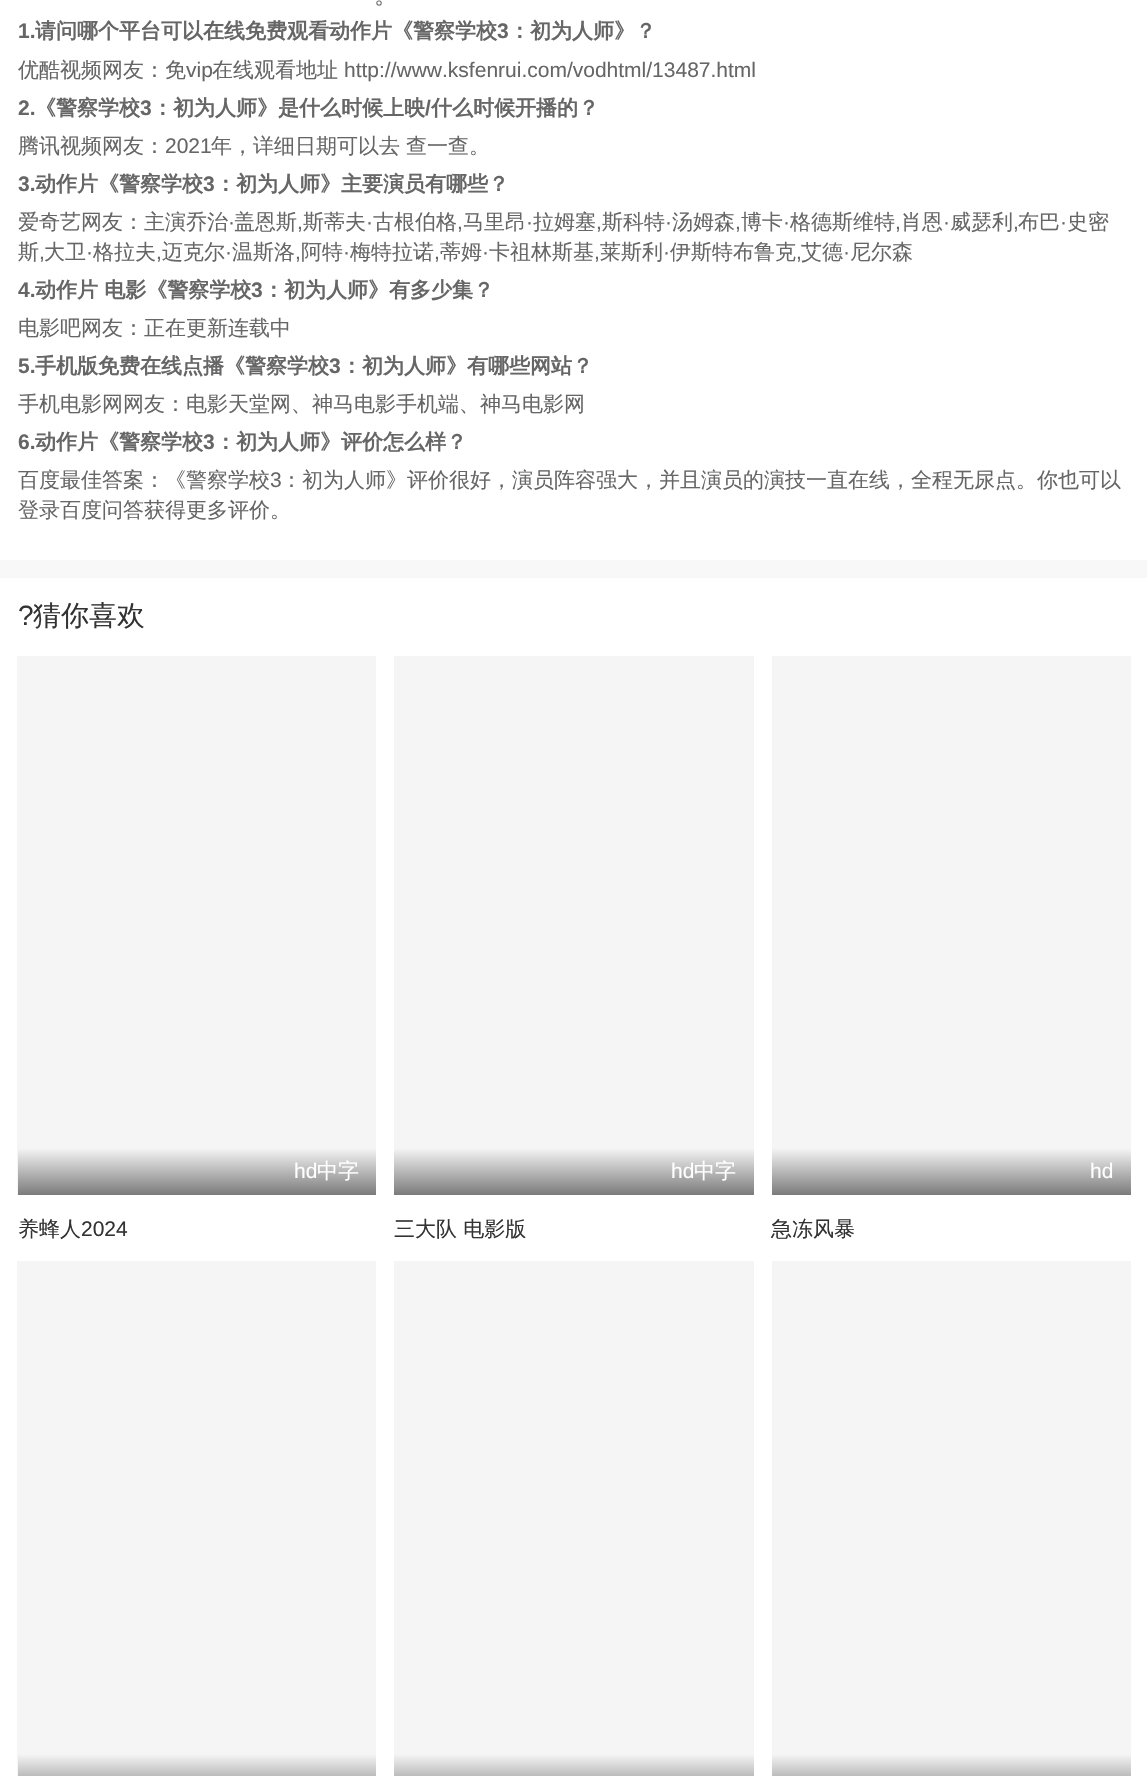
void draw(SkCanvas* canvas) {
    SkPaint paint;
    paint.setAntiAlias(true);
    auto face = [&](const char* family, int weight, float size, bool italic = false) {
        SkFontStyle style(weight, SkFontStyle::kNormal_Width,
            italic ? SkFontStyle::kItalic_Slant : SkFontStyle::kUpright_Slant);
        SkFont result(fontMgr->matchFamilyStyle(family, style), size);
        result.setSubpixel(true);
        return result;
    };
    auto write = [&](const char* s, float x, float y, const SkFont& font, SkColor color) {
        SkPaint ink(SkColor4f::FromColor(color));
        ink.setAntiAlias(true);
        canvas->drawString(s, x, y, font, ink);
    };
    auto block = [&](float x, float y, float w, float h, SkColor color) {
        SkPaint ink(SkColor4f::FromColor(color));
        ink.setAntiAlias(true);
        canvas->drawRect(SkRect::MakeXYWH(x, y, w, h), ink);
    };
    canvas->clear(SkColorSetRGB(248, 248, 248));
    block(0, 0, 1147, 560, SK_ColorWHITE);
    auto kFont1 = face("WenQuanYi Zen Hei", 500, 24);
    write("。", 374, 3, kFont1, SkColorSetRGB(102, 102, 102));
    auto kFont2 = face("Liberation Sans", 700, 21);
    write("1.", 18, 38, kFont2, SkColorSetRGB(102, 102, 102));
    auto kFont3 = face("WenQuanYi Zen Hei", 700, 21);
    write("请问哪个平台可以在线免费观看动作片《警察学校", 35, 38, kFont3, SkColorSetRGB(102, 102, 102));
    write("3", 497, 38, kFont2, SkColorSetRGB(102, 102, 102));
    write("：初为人师》？", 509, 38, kFont3, SkColorSetRGB(102, 102, 102));
    auto kFont4 = face("WenQuanYi Zen Hei", 500, 21);
    write("优酷视频网友：免", 18, 77, kFont4, SkColorSetRGB(102, 102, 102));
    auto kFont5 = face("Liberation Sans", 400, 21);
    write("vip", 186, 77, kFont5, SkColorSetRGB(102, 102, 102));
    write("在线观看地址", 212, 77, kFont4, SkColorSetRGB(102, 102, 102));
    write("http://www.ksfenrui.com/vodhtml/13487.html", 344, 77, kFont5, SkColorSetRGB(102, 102, 102));
    write("2.", 18, 115, kFont2, SkColorSetRGB(102, 102, 102));
    write("《警察学校", 35, 115, kFont3, SkColorSetRGB(102, 102, 102));
    write("3", 140, 115, kFont2, SkColorSetRGB(102, 102, 102));
    write("：初为人师》是什么时候上映", 152, 115, kFont3, SkColorSetRGB(102, 102, 102));
    write("/", 425, 115, kFont2, SkColorSetRGB(102, 102, 102));
    write("什么时候开播的？", 431, 115, kFont3, SkColorSetRGB(102, 102, 102));
    write("腾讯视频网友：", 18, 153, kFont4, SkColorSetRGB(102, 102, 102));
    write("2021", 165, 153, kFont5, SkColorSetRGB(102, 102, 102));
    write("年，详细日期可以去", 211, 153, kFont4, SkColorSetRGB(102, 102, 102));
    write("查一查。", 406, 153, kFont4, SkColorSetRGB(102, 102, 102));
    write("3.", 18, 191, kFont2, SkColorSetRGB(102, 102, 102));
    write("动作片《警察学校", 35, 191, kFont3, SkColorSetRGB(102, 102, 102));
    write("3", 203, 191, kFont2, SkColorSetRGB(102, 102, 102));
    write("：初为人师》主要演员有哪些？", 215, 191, kFont3, SkColorSetRGB(102, 102, 102));
    write("爱奇艺网友：主演乔治", 18, 229, kFont4, SkColorSetRGB(102, 102, 102));
    write("·", 228, 229, kFont5, SkColorSetRGB(102, 102, 102));
    write("盖恩斯", 234, 229, kFont4, SkColorSetRGB(102, 102, 102));
    write("斯蒂夫", 303, 229, kFont4, SkColorSetRGB(102, 102, 102));
    write("·", 366, 229, kFont5, SkColorSetRGB(102, 102, 102));
    write("古根伯格", 373, 229, kFont4, SkColorSetRGB(102, 102, 102));
    write("马里昂", 463, 229, kFont4, SkColorSetRGB(102, 102, 102));
    write("·", 526, 229, kFont5, SkColorSetRGB(102, 102, 102));
    write("拉姆塞", 533, 229, kFont4, SkColorSetRGB(102, 102, 102));
    write("斯科特", 602, 229, kFont4, SkColorSetRGB(102, 102, 102));
    write("·", 665, 229, kFont5, SkColorSetRGB(102, 102, 102));
    write("汤姆森", 672, 229, kFont4, SkColorSetRGB(102, 102, 102));
    write("博卡", 741, 229, kFont4, SkColorSetRGB(102, 102, 102));
    write("·", 783, 229, kFont5, SkColorSetRGB(102, 102, 102));
    write("格德斯维特", 790, 229, kFont4, SkColorSetRGB(102, 102, 102));
    write("肖恩", 901, 229, kFont4, SkColorSetRGB(102, 102, 102));
    write("·", 943, 229, kFont5, SkColorSetRGB(102, 102, 102));
    write("威瑟利", 950, 229, kFont4, SkColorSetRGB(102, 102, 102));
    write("布巴", 1018, 229, kFont4, SkColorSetRGB(102, 102, 102));
    write("·", 1060, 229, kFont5, SkColorSetRGB(102, 102, 102));
    write("史密", 1067, 229, kFont4, SkColorSetRGB(102, 102, 102));
    write(",", 297, 229, kFont5, SkColorSetRGB(102, 102, 102));
    write(",", 457, 229, kFont5, SkColorSetRGB(102, 102, 102));
    write(",", 596, 229, kFont5, SkColorSetRGB(102, 102, 102));
    write(",", 735, 229, kFont5, SkColorSetRGB(102, 102, 102));
    write(",", 895, 229, kFont5, SkColorSetRGB(102, 102, 102));
    write(",", 1013, 229, kFont5, SkColorSetRGB(102, 102, 102));
    write("斯", 18, 259, kFont4, SkColorSetRGB(102, 102, 102));
    write("大卫", 44, 259, kFont4, SkColorSetRGB(102, 102, 102));
    write("·", 86, 259, kFont5, SkColorSetRGB(102, 102, 102));
    write("格拉夫", 93, 259, kFont4, SkColorSetRGB(102, 102, 102));
    write("迈克尔", 162, 259, kFont4, SkColorSetRGB(102, 102, 102));
    write("·", 225, 259, kFont5, SkColorSetRGB(102, 102, 102));
    write("温斯洛", 232, 259, kFont4, SkColorSetRGB(102, 102, 102));
    write("阿特", 301, 259, kFont4, SkColorSetRGB(102, 102, 102));
    write("·", 343, 259, kFont5, SkColorSetRGB(102, 102, 102));
    write("梅特拉诺", 350, 259, kFont4, SkColorSetRGB(102, 102, 102));
    write("蒂姆", 440, 259, kFont4, SkColorSetRGB(102, 102, 102));
    write("·", 482, 259, kFont5, SkColorSetRGB(102, 102, 102));
    write("卡祖林斯基", 489, 259, kFont4, SkColorSetRGB(102, 102, 102));
    write("莱斯利", 600, 259, kFont4, SkColorSetRGB(102, 102, 102));
    write("·", 663, 259, kFont5, SkColorSetRGB(102, 102, 102));
    write("伊斯特布鲁克", 670, 259, kFont4, SkColorSetRGB(102, 102, 102));
    write("艾德", 801, 259, kFont4, SkColorSetRGB(102, 102, 102));
    write("·", 843, 259, kFont5, SkColorSetRGB(102, 102, 102));
    write("尼尔森", 850, 259, kFont4, SkColorSetRGB(102, 102, 102));
    write(",", 39, 259, kFont5, SkColorSetRGB(102, 102, 102));
    write(",", 156, 259, kFont5, SkColorSetRGB(102, 102, 102));
    write(",", 295, 259, kFont5, SkColorSetRGB(102, 102, 102));
    write(",", 434, 259, kFont5, SkColorSetRGB(102, 102, 102));
    write(",", 594, 259, kFont5, SkColorSetRGB(102, 102, 102));
    write(",", 796, 259, kFont5, SkColorSetRGB(102, 102, 102));
    write("4.", 18, 297, kFont2, SkColorSetRGB(102, 102, 102));
    write("动作片 电影《警察学校", 35, 297, kFont3, SkColorSetRGB(102, 102, 102));
    write("3", 251, 297, kFont2, SkColorSetRGB(102, 102, 102));
    write("：初为人师》有多少集？", 263, 297, kFont3, SkColorSetRGB(102, 102, 102));
    write("电影吧网友：正在更新连载中", 18, 335, kFont4, SkColorSetRGB(102, 102, 102));
    write("5.", 18, 373, kFont2, SkColorSetRGB(102, 102, 102));
    write("手机版免费在线点播《警察学校", 35, 373, kFont3, SkColorSetRGB(102, 102, 102));
    write("3", 329, 373, kFont2, SkColorSetRGB(102, 102, 102));
    write("：初为人师》有哪些网站？", 341, 373, kFont3, SkColorSetRGB(102, 102, 102));
    write("手机电影网网友：电影天堂网、神马电影手机端、神马电影网", 18, 411, kFont4, SkColorSetRGB(102, 102, 102));
    write("6.", 18, 449, kFont2, SkColorSetRGB(102, 102, 102));
    write("动作片《警察学校", 35, 449, kFont3, SkColorSetRGB(102, 102, 102));
    write("3", 203, 449, kFont2, SkColorSetRGB(102, 102, 102));
    write("：初为人师》评价怎么样？", 215, 449, kFont3, SkColorSetRGB(102, 102, 102));
    write("百度最佳答案：《警察学校", 18, 487, kFont4, SkColorSetRGB(102, 102, 102));
    write("3", 270, 487, kFont5, SkColorSetRGB(102, 102, 102));
    write("：初为人师》评价很好，演员阵容强大，并且演员的演技一直在线，全程无尿点。你也可以", 281, 487, kFont4, SkColorSetRGB(102, 102, 102));
    write("登录百度问答获得更多评价。", 18, 517, kFont4, SkColorSetRGB(102, 102, 102));
    block(0, 578, 1147, 1198, SK_ColorWHITE);
    auto kFont6 = face("Liberation Sans", 400, 28);
    write("?", 18, 625, kFont6, SkColorSetRGB(51, 51, 51));
    auto kFont7 = face("WenQuanYi Zen Hei", 500, 28);
    write("猜你喜欢", 33, 625, kFont7, SkColorSetRGB(51, 51, 51));
    block(17, 656, 359, 539, SkColorSetRGB(245, 245, 245));
    {
        const SkColor colors[] = {SkColorSetRGB(245, 245, 245), SkColorSetRGB(123, 123, 123)};
        const float stops[] = {0, 1};
        const SkPoint ends[] = {{197, 1148}, {197, 1195}};
        paint.setShader(SkGradientShader::MakeLinear(ends, colors, stops, 2, SkTileMode::kClamp));
        paint.setAlpha(255);
    }
    canvas->drawRect(SkRect::MakeXYWH(18, 1149, 358, 46), paint);
    write("hd", 294, 1178, kFont5, SK_ColorWHITE);
    write("中字", 317, 1178, kFont4, SK_ColorWHITE);
    write("养蜂人", 18, 1236, kFont4, SkColorSetRGB(51, 51, 51));
    write("2024", 81, 1236, kFont5, SkColorSetRGB(51, 51, 51));
    block(394, 656, 360, 492, SkColorSetRGB(245, 245, 245));
    {
        const SkColor colors[] = {SkColorSetRGB(245, 245, 245), SkColorSetRGB(123, 123, 123)};
        const float stops[] = {0, 1};
        const SkPoint ends[] = {{574, 1148}, {574, 1195}};
        paint.setShader(SkGradientShader::MakeLinear(ends, colors, stops, 2, SkTileMode::kClamp));
        paint.setAlpha(255);
    }
    canvas->drawRect(SkRect::MakeXYWH(394, 1148, 360, 47), paint);
    write("hd", 671, 1178, kFont5, SK_ColorWHITE);
    write("中字", 694, 1178, kFont4, SK_ColorWHITE);
    write("三大队 电影版", 394, 1236, kFont4, SkColorSetRGB(51, 51, 51));
    block(772, 656, 359, 492, SkColorSetRGB(245, 245, 245));
    {
        const SkColor colors[] = {SkColorSetRGB(245, 245, 245), SkColorSetRGB(123, 123, 123)};
        const float stops[] = {0, 1};
        const SkPoint ends[] = {{951, 1148}, {951, 1195}};
        paint.setShader(SkGradientShader::MakeLinear(ends, colors, stops, 2, SkTileMode::kClamp));
        paint.setAlpha(255);
    }
    canvas->drawRect(SkRect::MakeXYWH(772, 1148, 359, 47), paint);
    write("hd", 1090, 1178, kFont5, SK_ColorWHITE);
    write("急冻风暴", 771, 1236, kFont4, SkColorSetRGB(51, 51, 51));
    block(17, 1261, 359, 515, SkColorSetRGB(245, 245, 245));
    {
        const SkColor colors[] = {SkColorSetRGB(245, 245, 245), SkColorSetRGB(123, 123, 123)};
        const float stops[] = {0, 1};
        const SkPoint ends[] = {{197, 1754}, {197, 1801}};
        paint.setShader(SkGradientShader::MakeLinear(ends, colors, stops, 2, SkTileMode::kClamp));
        paint.setAlpha(255);
    }
    canvas->drawRect(SkRect::MakeXYWH(18, 1755, 358, 21), paint);
    block(394, 1261, 360, 493, SkColorSetRGB(245, 245, 245));
    {
        const SkColor colors[] = {SkColorSetRGB(245, 245, 245), SkColorSetRGB(123, 123, 123)};
        const float stops[] = {0, 1};
        const SkPoint ends[] = {{574, 1754}, {574, 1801}};
        paint.setShader(SkGradientShader::MakeLinear(ends, colors, stops, 2, SkTileMode::kClamp));
        paint.setAlpha(255);
    }
    canvas->drawRect(SkRect::MakeXYWH(394, 1754, 360, 22), paint);
    block(772, 1261, 359, 493, SkColorSetRGB(245, 245, 245));
    {
        const SkColor colors[] = {SkColorSetRGB(245, 245, 245), SkColorSetRGB(123, 123, 123)};
        const float stops[] = {0, 1};
        const SkPoint ends[] = {{951, 1754}, {951, 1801}};
        paint.setShader(SkGradientShader::MakeLinear(ends, colors, stops, 2, SkTileMode::kClamp));
        paint.setAlpha(255);
    }
    canvas->drawRect(SkRect::MakeXYWH(772, 1754, 359, 22), paint);
}
